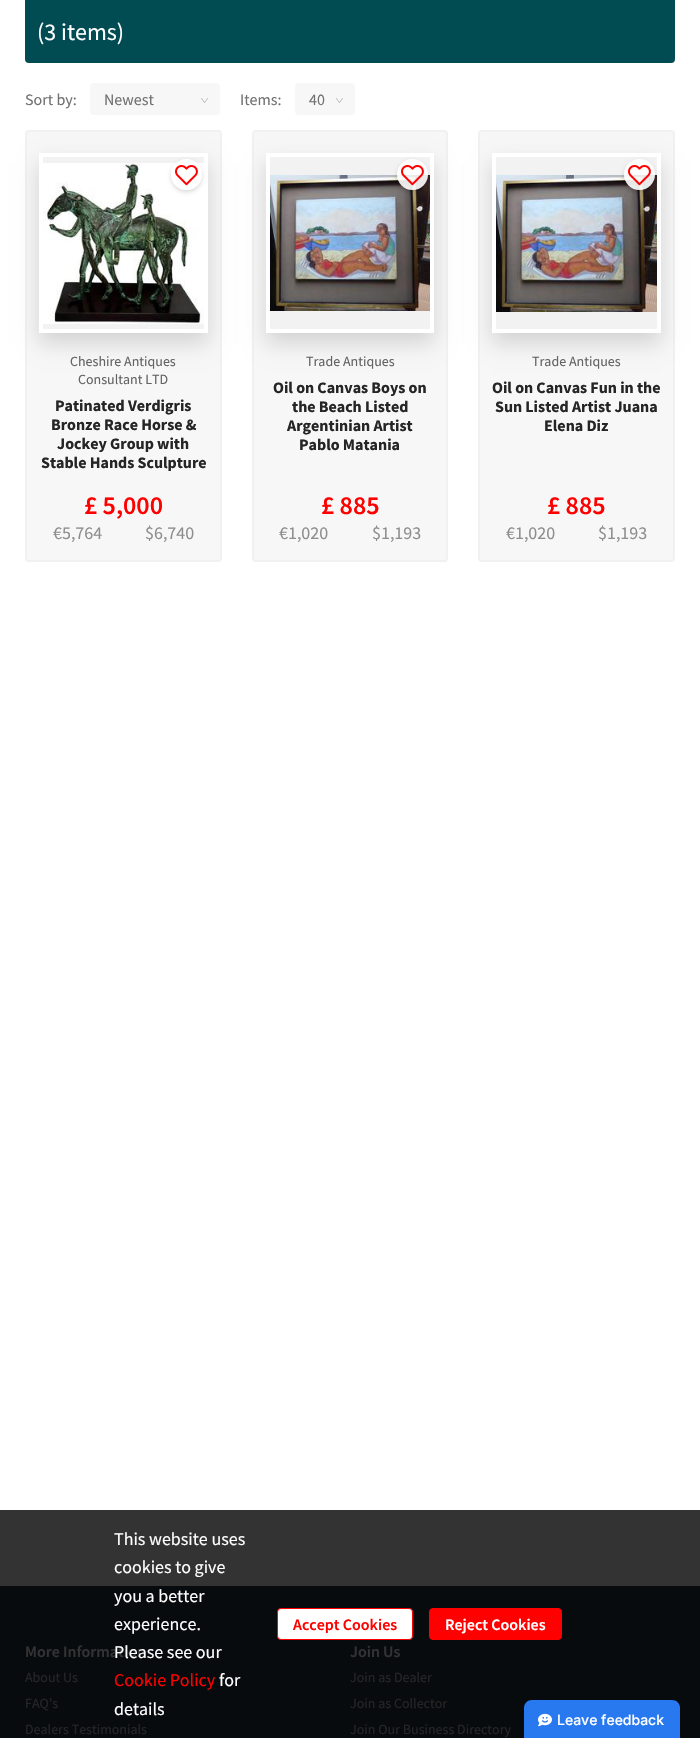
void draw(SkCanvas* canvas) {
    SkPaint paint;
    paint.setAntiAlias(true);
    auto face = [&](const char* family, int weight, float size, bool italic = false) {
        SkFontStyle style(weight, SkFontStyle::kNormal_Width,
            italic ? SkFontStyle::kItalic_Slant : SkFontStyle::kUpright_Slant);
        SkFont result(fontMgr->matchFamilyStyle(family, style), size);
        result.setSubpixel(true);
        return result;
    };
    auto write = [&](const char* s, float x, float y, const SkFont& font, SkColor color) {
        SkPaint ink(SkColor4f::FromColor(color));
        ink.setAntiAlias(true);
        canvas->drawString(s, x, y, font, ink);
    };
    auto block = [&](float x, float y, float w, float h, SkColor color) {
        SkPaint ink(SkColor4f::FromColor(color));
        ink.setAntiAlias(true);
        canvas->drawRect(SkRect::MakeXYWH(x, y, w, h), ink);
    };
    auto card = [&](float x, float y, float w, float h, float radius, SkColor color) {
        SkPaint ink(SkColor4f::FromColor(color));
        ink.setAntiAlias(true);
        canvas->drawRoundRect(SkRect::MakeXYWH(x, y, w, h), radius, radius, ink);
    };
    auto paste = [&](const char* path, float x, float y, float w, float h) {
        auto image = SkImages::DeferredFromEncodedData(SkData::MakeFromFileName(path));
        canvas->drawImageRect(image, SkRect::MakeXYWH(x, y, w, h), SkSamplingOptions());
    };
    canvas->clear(SK_ColorWHITE);
    block(0, 1510, 700, 76, SkColorSetRGB(51, 51, 51));
    card(25, -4, 650, 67, 4, SkColorSetRGB(0, 76, 82));
    auto kFont1 = face("Source Sans Pro", 400, 24);
    write("(3 items)", 37, 40, kFont1, SK_ColorWHITE);
    auto kFont2 = face("Source Sans Pro", 400, 16);
    write("Sort by:", 25, 105, kFont2, SkColorSetRGB(113, 113, 113));
    card(90, 83, 130, 32, 4, SkColorSetRGB(247, 247, 247));
    write("Newest", 104, 105, kFont2, SkColorSetRGB(113, 113, 113));
    paste("pic1.png", 201, 98, 7, 5);
    write("Items:", 240, 105, kFont2, SkColorSetRGB(113, 113, 113));
    card(295, 83, 60, 32, 4, SkColorSetRGB(247, 247, 247));
    write("40", 309, 105, kFont2, SkColorSetRGB(113, 113, 113));
    paste("pic1.png", 336, 98, 7, 5);
    paint.setColor(SkColorSetRGB(247, 247, 247));
    canvas->drawRoundRect(SkRect::MakeXYWH(26, 131, 195, 430), 3, 3, paint);
    paint.setStyle(SkPaint::kStroke_Style);
    paint.setStrokeWidth(2);
    paint.setColor(SkColorSetRGB(241, 241, 241));
    canvas->drawRoundRect(SkRect::MakeXYWH(26, 131, 195, 430), 3, 3, paint);
    paint.setStyle(SkPaint::kFill_Style);
    paint.setColor(SkColorSetARGB(38, 0, 0, 0));
    paint.setMaskFilter(SkMaskFilter::MakeBlur(kNormal_SkBlurStyle, 10));
    canvas->drawRect(SkRect::MakeXYWH(39, 163, 169, 180), paint);
    paint.setMaskFilter(nullptr);
    paint.setStyle(SkPaint::kStroke_Style);
    paint.setStrokeWidth(4);
    paint.setColor(SK_ColorWHITE);
    canvas->drawRect(SkRect::MakeXYWH(41, 155, 165, 176), paint);
    block(43, 157, 161, 172, SkColorSetRGB(242, 242, 242));
    paste("pic2.png", 43, 163, 161, 161);
    canvas->save();
    canvas->clipPath(SkPathBuilder(SkPathFillType::kEvenOdd).moveTo(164, 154).lineTo(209, 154).lineTo(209, 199).lineTo(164, 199).close().moveTo(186.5f, 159).cubicTo(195, 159, 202, 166, 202, 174.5f).cubicTo(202, 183, 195, 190, 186.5f, 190).cubicTo(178, 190, 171, 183, 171, 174.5f).cubicTo(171, 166, 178, 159, 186.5f, 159).close().detach(), true);
    paint.setStyle(SkPaint::kFill_Style);
    paint.setColor(SkColorSetARGB(38, 0, 0, 0));
    paint.setMaskFilter(SkMaskFilter::MakeBlur(kNormal_SkBlurStyle, 2));
    canvas->drawRoundRect(SkRect::MakeXYWH(171, 161, 31, 31), 15.5f, 15.5f, paint);
    paint.setMaskFilter(nullptr);
    canvas->restore();
    paint.setColor(SkColorSetARGB(230, 255, 255, 255));
    canvas->drawCircle(186.5f, 174.5f, 15.5f, paint);
    paste("pic3.png", 175, 165, 23, 21);
    auto kFont3 = face("Source Sans Pro", 400, 14);
    write("Cheshire Antiques", 70, 366, kFont3, SkColorSetRGB(99, 99, 99));
    write("Consultant LTD", 78, 384, kFont3, SkColorSetRGB(99, 99, 99));
    auto kFont4 = face("Source Sans Pro", 700, 16);
    write("Patinated Verdigris", 55, 411, kFont4, SkColorSetRGB(37, 37, 37));
    write("Bronze Race Horse &", 51, 430, kFont4, SkColorSetRGB(37, 37, 37));
    write("Jockey Group with", 57, 449, kFont4, SkColorSetRGB(37, 37, 37));
    write("Stable Hands Sculpture", 41, 468, kFont4, SkColorSetRGB(37, 37, 37));
    auto kFont5 = face("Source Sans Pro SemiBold", 600, 26);
    write("£ 5,000", 84, 514, kFont5, SkColorSetRGB(255, 0, 0));
    auto kFont6 = face("Source Sans Pro", 400, 18);
    write("€5,764", 53, 539, kFont6, SkColorSetRGB(142, 142, 142));
    write("$6,740", 145, 539, kFont6, SkColorSetRGB(142, 142, 142));
    paint.setColor(SkColorSetRGB(247, 247, 247));
    canvas->drawRoundRect(SkRect::MakeXYWH(253, 131, 194, 430), 3, 3, paint);
    paint.setStyle(SkPaint::kStroke_Style);
    paint.setStrokeWidth(2);
    paint.setColor(SkColorSetRGB(241, 241, 241));
    canvas->drawRoundRect(SkRect::MakeXYWH(253, 131, 194, 430), 3, 3, paint);
    paint.setStyle(SkPaint::kFill_Style);
    paint.setColor(SkColorSetARGB(38, 0, 0, 0));
    paint.setMaskFilter(SkMaskFilter::MakeBlur(kNormal_SkBlurStyle, 10));
    canvas->drawRect(SkRect::MakeXYWH(266, 163, 168, 180), paint);
    paint.setMaskFilter(nullptr);
    paint.setStyle(SkPaint::kStroke_Style);
    paint.setStrokeWidth(4);
    paint.setColor(SK_ColorWHITE);
    canvas->drawRect(SkRect::MakeXYWH(268, 155, 164, 176), paint);
    block(270, 157, 160, 172, SkColorSetRGB(242, 242, 242));
    paste("pic4.png", 270, 175, 160, 136);
    canvas->save();
    canvas->clipPath(SkPathBuilder(SkPathFillType::kEvenOdd).moveTo(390, 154).lineTo(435, 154).lineTo(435, 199).lineTo(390, 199).close().moveTo(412.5f, 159).cubicTo(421, 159, 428, 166, 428, 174.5f).cubicTo(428, 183, 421, 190, 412.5f, 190).cubicTo(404, 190, 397, 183, 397, 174.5f).cubicTo(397, 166, 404, 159, 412.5f, 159).close().detach(), true);
    paint.setStyle(SkPaint::kFill_Style);
    paint.setColor(SkColorSetARGB(38, 0, 0, 0));
    paint.setMaskFilter(SkMaskFilter::MakeBlur(kNormal_SkBlurStyle, 2));
    canvas->drawRoundRect(SkRect::MakeXYWH(397, 161, 31, 31), 15.5f, 15.5f, paint);
    paint.setMaskFilter(nullptr);
    canvas->restore();
    paint.setColor(SkColorSetARGB(230, 255, 255, 255));
    canvas->drawCircle(412.5f, 174.5f, 15.5f, paint);
    paste("pic5.png", 401, 165, 23, 21);
    write("Trade Antiques", 306, 366, kFont3, SkColorSetRGB(99, 99, 99));
    write("Oil on Canvas Boys on", 273, 393, kFont4, SkColorSetRGB(37, 37, 37));
    write("the Beach Listed", 292, 412, kFont4, SkColorSetRGB(37, 37, 37));
    write("Argentinian Artist", 287, 431, kFont4, SkColorSetRGB(37, 37, 37));
    write("Pablo Matania", 299, 450, kFont4, SkColorSetRGB(37, 37, 37));
    write("£ 885", 321, 514, kFont5, SkColorSetRGB(255, 0, 0));
    write("€1,020", 279, 539, kFont6, SkColorSetRGB(142, 142, 142));
    write("$1,193", 372, 539, kFont6, SkColorSetRGB(142, 142, 142));
    paint.setColor(SkColorSetRGB(247, 247, 247));
    canvas->drawRoundRect(SkRect::MakeXYWH(479, 131, 195, 430), 3, 3, paint);
    paint.setStyle(SkPaint::kStroke_Style);
    paint.setStrokeWidth(2);
    paint.setColor(SkColorSetRGB(241, 241, 241));
    canvas->drawRoundRect(SkRect::MakeXYWH(479, 131, 195, 430), 3, 3, paint);
    paint.setStyle(SkPaint::kFill_Style);
    paint.setColor(SkColorSetARGB(38, 0, 0, 0));
    paint.setMaskFilter(SkMaskFilter::MakeBlur(kNormal_SkBlurStyle, 10));
    canvas->drawRect(SkRect::MakeXYWH(492, 163, 169, 180), paint);
    paint.setMaskFilter(nullptr);
    paint.setStyle(SkPaint::kStroke_Style);
    paint.setStrokeWidth(4);
    paint.setColor(SK_ColorWHITE);
    canvas->drawRect(SkRect::MakeXYWH(494, 155, 165, 176), paint);
    block(496, 157, 161, 172, SkColorSetRGB(242, 242, 242));
    paste("pic6.png", 496, 175, 161, 137);
    canvas->save();
    canvas->clipPath(SkPathBuilder(SkPathFillType::kEvenOdd).moveTo(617, 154).lineTo(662, 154).lineTo(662, 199).lineTo(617, 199).close().moveTo(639.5f, 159).cubicTo(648, 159, 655, 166, 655, 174.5f).cubicTo(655, 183, 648, 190, 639.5f, 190).cubicTo(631, 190, 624, 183, 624, 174.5f).cubicTo(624, 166, 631, 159, 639.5f, 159).close().detach(), true);
    paint.setStyle(SkPaint::kFill_Style);
    paint.setColor(SkColorSetARGB(38, 0, 0, 0));
    paint.setMaskFilter(SkMaskFilter::MakeBlur(kNormal_SkBlurStyle, 2));
    canvas->drawRoundRect(SkRect::MakeXYWH(624, 161, 31, 31), 15.5f, 15.5f, paint);
    paint.setMaskFilter(nullptr);
    canvas->restore();
    paint.setColor(SkColorSetARGB(230, 255, 255, 255));
    canvas->drawCircle(639.5f, 174.5f, 15.5f, paint);
    paste("pic7.png", 628, 165, 23, 21);
    write("Trade Antiques", 532, 366, kFont3, SkColorSetRGB(99, 99, 99));
    write("Oil on Canvas Fun in the", 492, 393, kFont4, SkColorSetRGB(37, 37, 37));
    write("Sun Listed Artist Juana", 495, 412, kFont4, SkColorSetRGB(37, 37, 37));
    write("Elena Diz", 544, 431, kFont4, SkColorSetRGB(37, 37, 37));
    write("£ 885", 547, 514, kFont5, SkColorSetRGB(255, 0, 0));
    write("€1,020", 506, 539, kFont6, SkColorSetRGB(142, 142, 142));
    write("$1,193", 598, 539, kFont6, SkColorSetRGB(142, 142, 142));
    block(0, 1586, 700, 152, SkColorSetRGB(8, 11, 14));
    write("This website uses", 114, 1545, kFont6, SK_ColorWHITE);
    write("cookies to give", 114, 1573, kFont6, SK_ColorWHITE);
    write("you a better", 114, 1602, kFont6, SK_ColorWHITE);
    write("experience.", 114, 1630, kFont6, SK_ColorWHITE);
    auto kFont7 = face("Source Sans Pro SemiBold", 600, 16);
    write("More Information", 25, 1657, kFont7, SkColorSetRGB(51, 51, 51));
    write("Please see our", 114, 1658, kFont6, SK_ColorWHITE);
    write("Cookie Policy", 114, 1686, kFont6, SkColorSetRGB(255, 0, 0));
    write("for", 219, 1686, kFont6, SK_ColorWHITE);
    write("details", 114, 1715, kFont6, SK_ColorWHITE);
    paint.setColor(SK_ColorWHITE);
    canvas->drawRoundRect(SkRect::MakeXYWH(277.5f, 1608.5f, 135, 31), 3.5f, 3.5f, paint);
    paint.setStyle(SkPaint::kStroke_Style);
    paint.setStrokeWidth(1);
    paint.setColor(SkColorSetRGB(255, 0, 0));
    canvas->drawRoundRect(SkRect::MakeXYWH(277.5f, 1608.5f, 135, 31), 3.5f, 3.5f, paint);
    write("Accept Cookies", 293, 1630, kFont7, SkColorSetRGB(255, 0, 0));
    paint.setStyle(SkPaint::kFill_Style);
    canvas->drawRoundRect(SkRect::MakeXYWH(429.5f, 1608.5f, 132, 31), 3.5f, 3.5f, paint);
    paint.setStyle(SkPaint::kStroke_Style);
    canvas->drawRoundRect(SkRect::MakeXYWH(429.5f, 1608.5f, 132, 31), 3.5f, 3.5f, paint);
    write("Reject Cookies", 445, 1630, kFont7, SK_ColorWHITE);
    write("About Us", 25, 1682, kFont3, SkColorSetRGB(37, 37, 37));
    write("FAQ’s", 25, 1708, kFont3, SkColorSetRGB(37, 37, 37));
    write("Dealers Testimonials", 25, 1734, kFont3, SkColorSetRGB(37, 37, 37));
    write("Join Us", 350, 1657, kFont7, SkColorSetRGB(51, 51, 51));
    write("Join as Dealer", 350, 1682, kFont3, SkColorSetRGB(37, 37, 37));
    write("Join as Collector", 350, 1708, kFont3, SkColorSetRGB(37, 37, 37));
    write("Join Our Business Directory", 350, 1734, kFont3, SkColorSetRGB(37, 37, 37));
    paint.setStyle(SkPaint::kFill_Style);
    paint.setColor(SkColorSetRGB(40, 120, 240));
    canvas->drawPath(SkPathBuilder().moveTo(532, 1700).lineTo(672, 1700).cubicTo(676.5f, 1700, 680, 1703.5f, 680, 1708).lineTo(680, 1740).lineTo(524, 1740).lineTo(524, 1708).cubicTo(524, 1703.5f, 527.5f, 1700, 532, 1700).close().detach(), paint);
    paste("pic8.png", 538, 1713, 14, 14);
    auto kFont8 = face("Inter", 500, 14);
    write("Leave feedback", 557, 1725, kFont8, SK_ColorWHITE);
}
